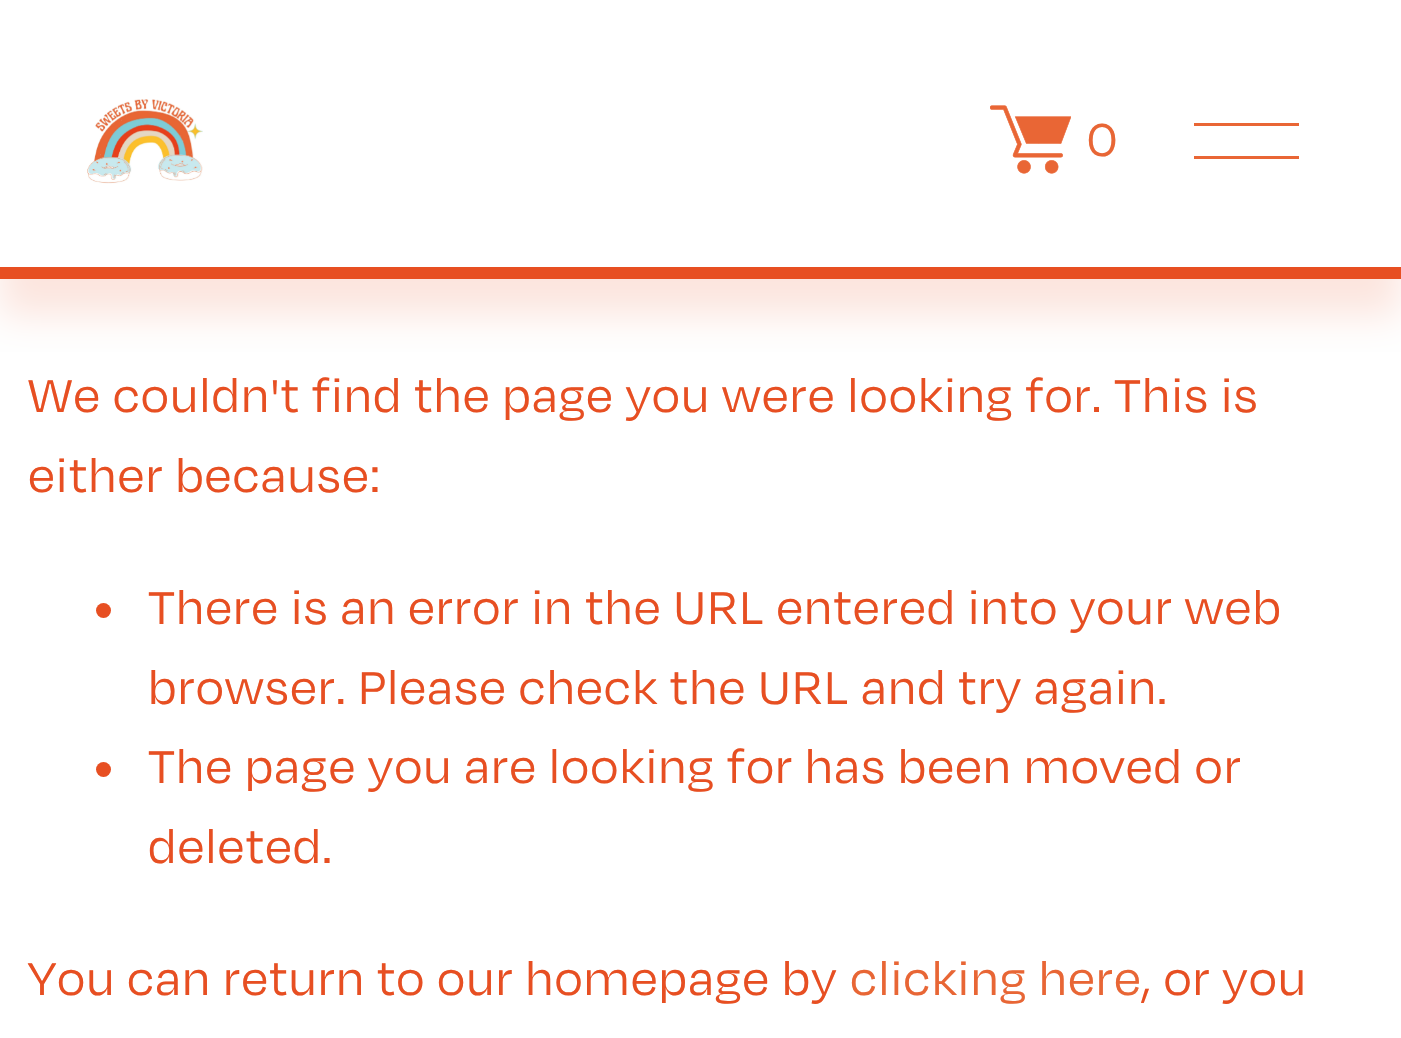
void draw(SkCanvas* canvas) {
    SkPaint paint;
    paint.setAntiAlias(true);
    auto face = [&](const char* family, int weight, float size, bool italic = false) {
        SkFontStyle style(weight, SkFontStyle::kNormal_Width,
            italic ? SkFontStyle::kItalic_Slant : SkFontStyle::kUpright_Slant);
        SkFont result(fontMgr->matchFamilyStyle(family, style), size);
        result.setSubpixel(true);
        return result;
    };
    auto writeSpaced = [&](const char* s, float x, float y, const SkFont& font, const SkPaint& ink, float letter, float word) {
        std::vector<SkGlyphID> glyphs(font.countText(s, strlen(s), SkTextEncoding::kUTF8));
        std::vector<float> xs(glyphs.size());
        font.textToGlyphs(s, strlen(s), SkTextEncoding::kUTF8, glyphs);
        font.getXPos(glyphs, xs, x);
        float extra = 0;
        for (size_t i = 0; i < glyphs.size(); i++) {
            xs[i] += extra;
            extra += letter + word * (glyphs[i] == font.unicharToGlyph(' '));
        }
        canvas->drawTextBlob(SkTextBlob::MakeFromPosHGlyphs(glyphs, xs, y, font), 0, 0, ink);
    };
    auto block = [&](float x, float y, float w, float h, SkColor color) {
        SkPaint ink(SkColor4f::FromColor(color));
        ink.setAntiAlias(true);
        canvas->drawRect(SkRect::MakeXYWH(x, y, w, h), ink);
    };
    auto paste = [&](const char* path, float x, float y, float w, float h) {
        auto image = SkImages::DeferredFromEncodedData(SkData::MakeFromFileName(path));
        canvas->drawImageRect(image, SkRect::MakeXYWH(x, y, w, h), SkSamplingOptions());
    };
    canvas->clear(SK_ColorWHITE);
    canvas->save();
    canvas->clipRect(SkRect::MakeXYWH(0, 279, 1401, 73));
    paint.setColor(SkColorSetRGB(252, 229, 222));
    paint.setMaskFilter(SkMaskFilter::MakeBlur(kNormal_SkBlurStyle, 18));
    canvas->drawRect(SkRect::MakeXYWH(0, 36, 1401, 279), paint);
    paint.setMaskFilter(nullptr);
    canvas->restore();
    paste("pic1.png", 87, 99, 116, 85);
    paste("pic2.png", 990, 105, 81, 69);
    auto kFont1 = face("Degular", 400, 53);
    paint.setColor(SkColorSetRGB(232, 102, 53));
    writeSpaced("0", 1087, 156, kFont1, paint, 1.05f, 0);
    block(1194, 123, 105, 3, SkColorSetRGB(233, 102, 53));
    block(1194, 156, 105, 3, SkColorSetRGB(233, 102, 53));
    block(0, 267, 1401, 12, SkColorSetRGB(231, 79, 34));
    paint.setColor(SkColorSetRGB(231, 79, 34));
    writeSpaced("We couldn't find the page you were looking for. This is", 28, 412, kFont1, paint, 1.05f, 0);
    writeSpaced("either because:", 28, 492, kFont1, paint, 1.05f, 0);
    canvas->drawCircle(103.5f, 610.5f, 7.5f, paint);
    writeSpaced("There is an error in the URL entered into your web", 148, 624, kFont1, paint, 1.05f, 0);
    writeSpaced("browser. Please check the URL and try again.", 148, 704, kFont1, paint, 1.05f, 0);
    canvas->drawCircle(103.5f, 769.5f, 7.5f, paint);
    writeSpaced("The page you are looking for has been moved or", 148, 783, kFont1, paint, 1.05f, 0);
    writeSpaced("deleted.", 148, 863, kFont1, paint, 1.05f, 0);
    writeSpaced("You can return to our homepage by", 28, 995, kFont1, paint, 1.05f, 0);
    paint.setColor(SkColorSetRGB(232, 102, 53));
    writeSpaced("clicking here", 850, 995, kFont1, paint, 1.05f, 0);
    paint.setColor(SkColorSetRGB(231, 79, 34));
    writeSpaced(", or you", 1142, 995, kFont1, paint, 1.05f, 0);
}
